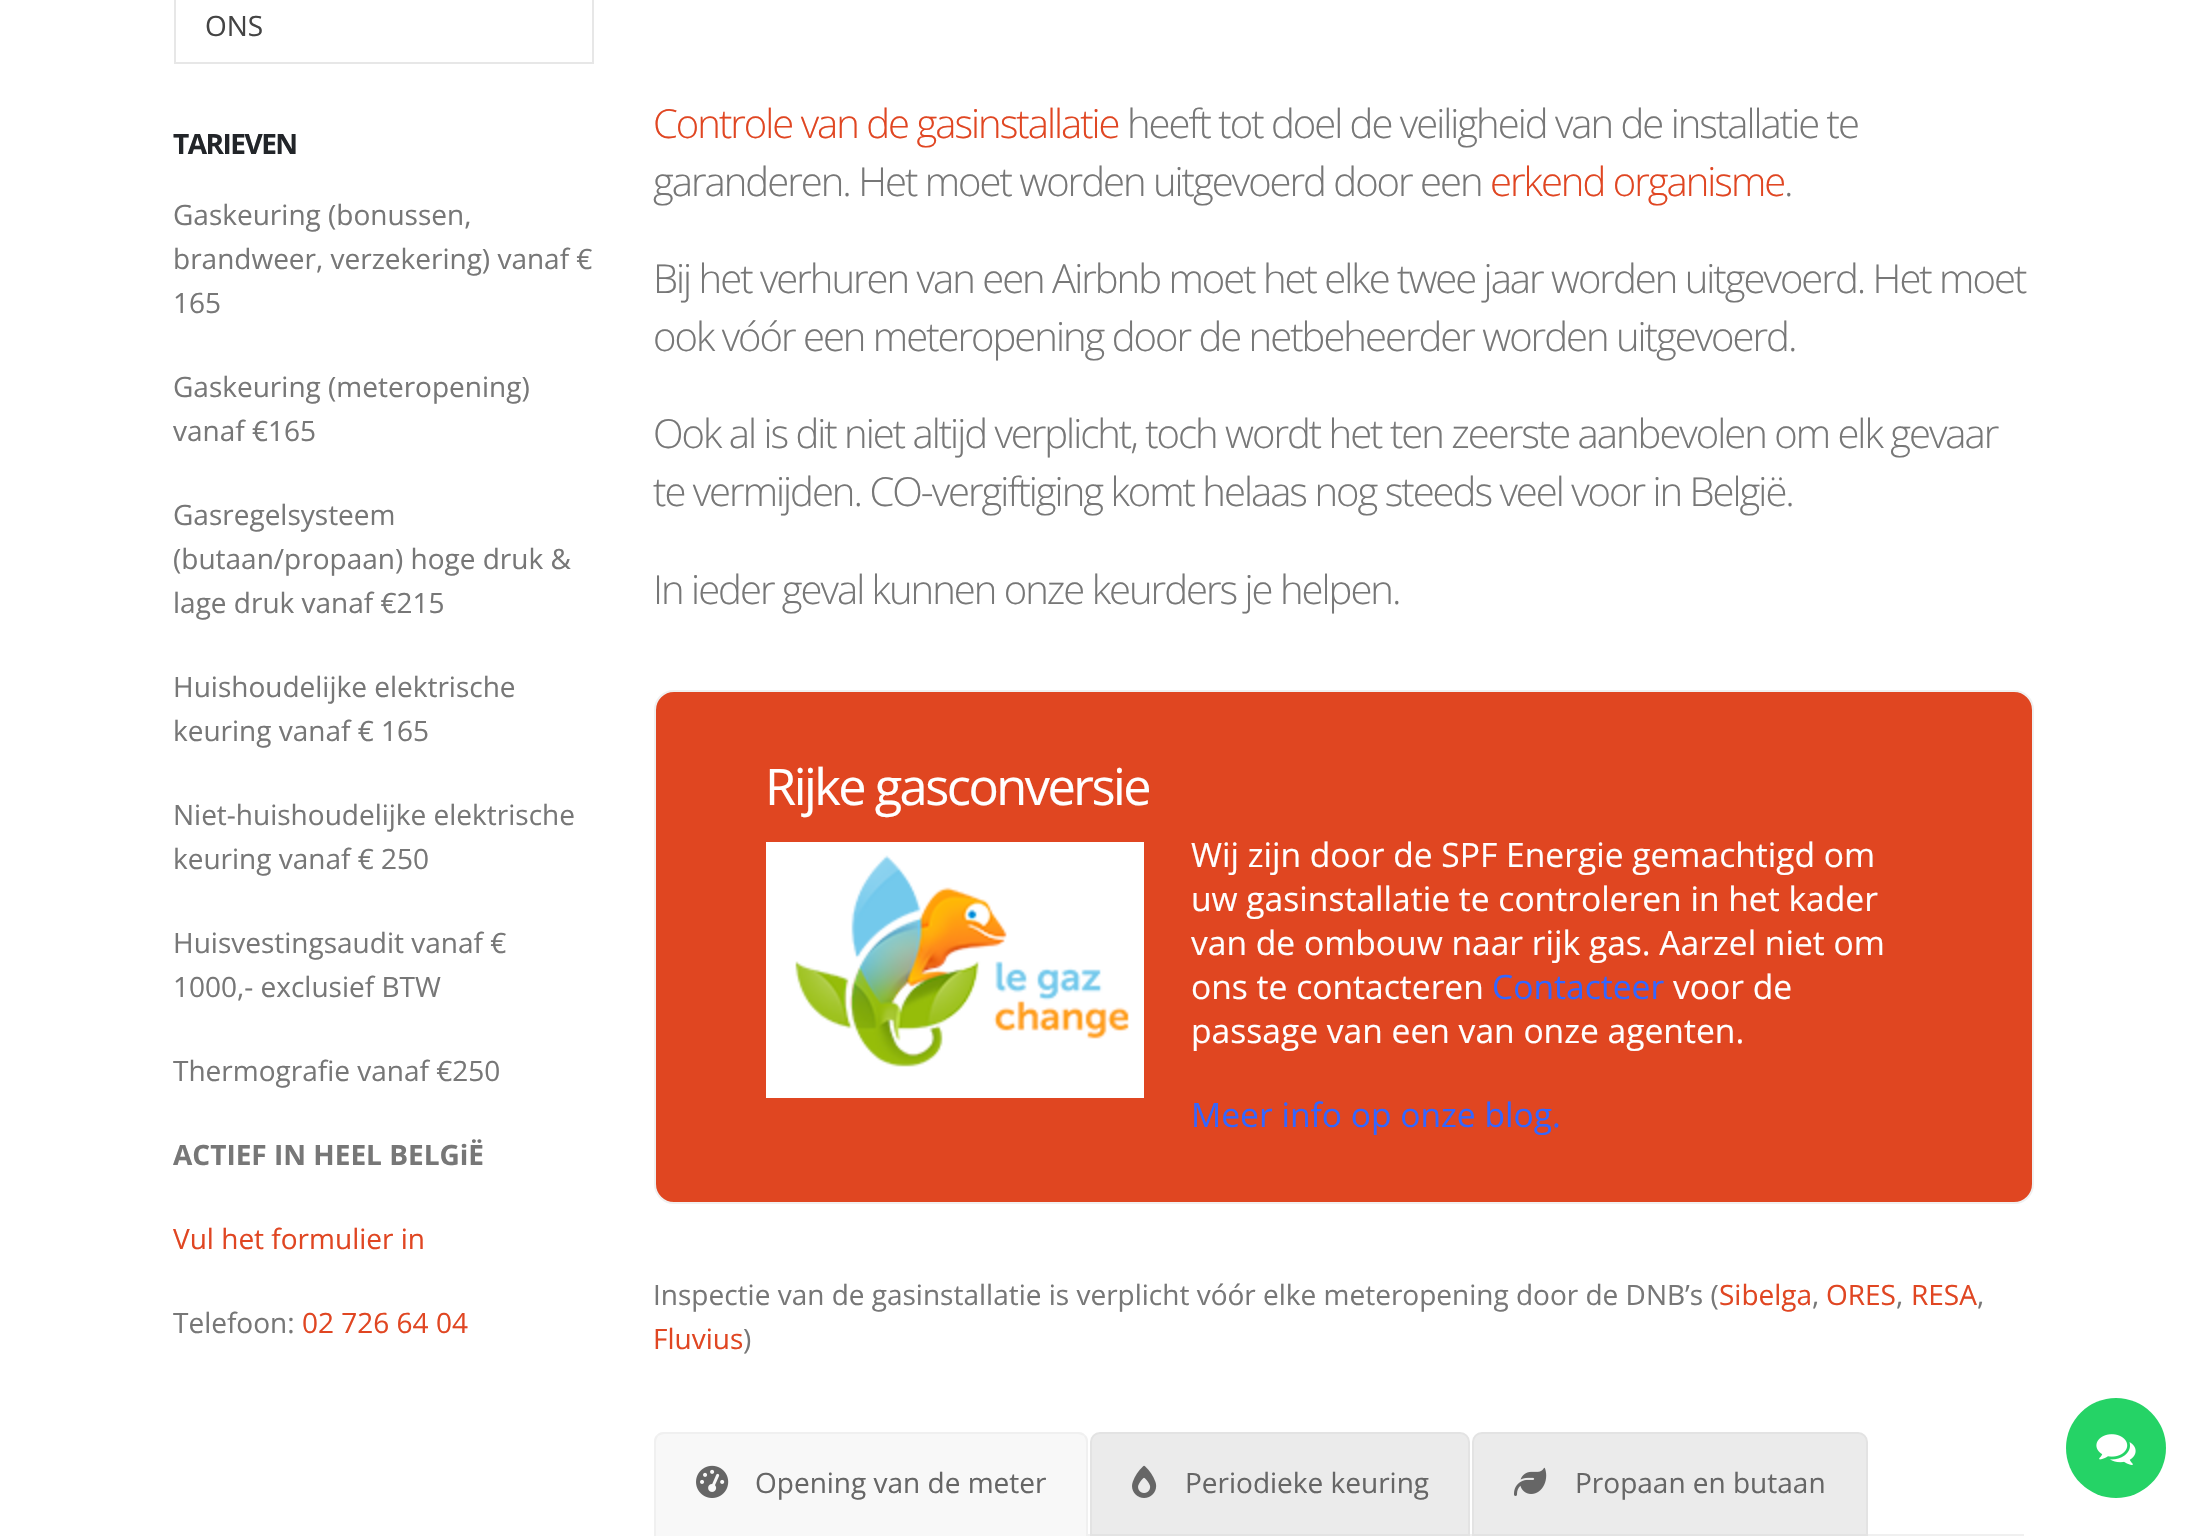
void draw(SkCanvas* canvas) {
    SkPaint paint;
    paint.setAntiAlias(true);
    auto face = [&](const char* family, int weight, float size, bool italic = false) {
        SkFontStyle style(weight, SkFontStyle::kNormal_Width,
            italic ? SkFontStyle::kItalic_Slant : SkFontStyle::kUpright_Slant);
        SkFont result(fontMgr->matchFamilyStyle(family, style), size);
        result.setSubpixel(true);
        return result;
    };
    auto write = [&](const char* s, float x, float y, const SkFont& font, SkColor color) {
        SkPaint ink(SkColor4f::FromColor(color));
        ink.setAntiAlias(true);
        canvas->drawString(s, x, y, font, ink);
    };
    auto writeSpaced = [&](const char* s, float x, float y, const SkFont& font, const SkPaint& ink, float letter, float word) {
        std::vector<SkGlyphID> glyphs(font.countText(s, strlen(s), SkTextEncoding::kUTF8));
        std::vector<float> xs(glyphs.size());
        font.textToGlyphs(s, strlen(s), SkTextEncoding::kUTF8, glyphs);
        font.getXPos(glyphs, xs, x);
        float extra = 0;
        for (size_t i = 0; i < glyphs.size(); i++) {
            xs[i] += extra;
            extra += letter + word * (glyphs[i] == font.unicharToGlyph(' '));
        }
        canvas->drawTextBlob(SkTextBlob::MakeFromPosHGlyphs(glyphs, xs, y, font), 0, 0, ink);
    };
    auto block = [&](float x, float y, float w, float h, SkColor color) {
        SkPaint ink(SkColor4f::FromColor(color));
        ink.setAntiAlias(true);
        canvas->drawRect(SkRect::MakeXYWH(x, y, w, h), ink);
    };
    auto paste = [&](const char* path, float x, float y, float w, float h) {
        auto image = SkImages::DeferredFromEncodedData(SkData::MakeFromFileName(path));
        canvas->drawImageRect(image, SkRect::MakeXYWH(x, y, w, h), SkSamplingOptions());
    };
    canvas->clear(SK_ColorWHITE);
    paint.setStyle(SkPaint::kStroke_Style);
    paint.setStrokeWidth(2);
    paint.setColor(SkColorSetRGB(231, 231, 231));
    canvas->drawRect(SkRect::MakeXYWH(175, -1, 418, 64), paint);
    auto kFont1 = face("Open Sans", 400, 28);
    write("ONS", 205, 36, kFont1, SkColorSetRGB(68, 68, 68));
    auto kFont2 = face("Open Sans", 700, 28);
    paint.setStyle(SkPaint::kFill_Style);
    paint.setColor(SkColorSetRGB(34, 37, 41));
    writeSpaced("TARIEVEN", 173, 154, kFont2, paint, -1.5f, 0);
    write("Gaskeuring (bonussen,", 173, 225, kFont1, SkColorSetRGB(119, 119, 119));
    write("brandweer, verzekering) vanaf €", 173, 269, kFont1, SkColorSetRGB(119, 119, 119));
    write("165", 173, 313, kFont1, SkColorSetRGB(119, 119, 119));
    write("Gaskeuring (meteropening)", 173, 397, kFont1, SkColorSetRGB(119, 119, 119));
    write("vanaf €165", 173, 441, kFont1, SkColorSetRGB(119, 119, 119));
    write("Gasregelsysteem", 173, 525, kFont1, SkColorSetRGB(119, 119, 119));
    write("(butaan/propaan) hoge druk &", 173, 569, kFont1, SkColorSetRGB(119, 119, 119));
    write("lage druk vanaf €215", 173, 613, kFont1, SkColorSetRGB(119, 119, 119));
    write("Huishoudelijke elektrische", 173, 697, kFont1, SkColorSetRGB(119, 119, 119));
    write("keuring vanaf € 165", 173, 741, kFont1, SkColorSetRGB(119, 119, 119));
    write("Niet-huishoudelijke elektrische", 173, 825, kFont1, SkColorSetRGB(119, 119, 119));
    write("keuring vanaf € 250", 173, 869, kFont1, SkColorSetRGB(119, 119, 119));
    write("Huisvestingsaudit vanaf €", 173, 953, kFont1, SkColorSetRGB(119, 119, 119));
    write("1000,- exclusief BTW", 173, 997, kFont1, SkColorSetRGB(119, 119, 119));
    write("Thermografie vanaf €250", 173, 1081, kFont1, SkColorSetRGB(119, 119, 119));
    write("ACTIEF IN HEEL BELGiË", 173, 1165, kFont2, SkColorSetRGB(119, 119, 119));
    write("Vul het formulier in", 173, 1249, kFont1, SkColorSetRGB(224, 70, 34));
    write("Telefoon:", 173, 1333, kFont1, SkColorSetRGB(119, 119, 119));
    write("02 726 64 04", 302, 1333, kFont1, SkColorSetRGB(224, 70, 34));
    auto kFont3 = face("Open Sans", 300, 40);
    paint.setColor(SkColorSetRGB(224, 70, 34));
    writeSpaced("Controle van de gasinstallatie", 653, 138, kFont3, paint, -2, 0);
    paint.setColor(SkColorSetRGB(119, 119, 119));
    writeSpaced("heeft tot doel de veiligheid van de installatie te", 1127, 138, kFont3, paint, -2, 0);
    writeSpaced("garanderen. Het moet worden uitgevoerd door een", 653, 196, kFont3, paint, -2, 0);
    paint.setColor(SkColorSetRGB(224, 70, 34));
    writeSpaced("erkend organisme", 1490, 196, kFont3, paint, -2, 0);
    paint.setColor(SkColorSetRGB(119, 119, 119));
    writeSpaced(".", 1784, 196, kFont3, paint, -2, 0);
    writeSpaced("Bij het verhuren van een Airbnb moet het elke twee jaar worden uitgevoerd. Het moet", 653, 293, kFont3, paint, -2, 0);
    writeSpaced("ook vóór een meteropening door de netbeheerder worden uitgevoerd.", 653, 351, kFont3, paint, -2, 0);
    writeSpaced("Ook al is dit niet altijd verplicht, toch wordt het ten zeerste aanbevolen om elk gevaar", 653, 448, kFont3, paint, -2, 0);
    writeSpaced("te vermijden. CO-vergiftiging komt helaas nog steeds veel voor in België.", 653, 506, kFont3, paint, -2, 0);
    writeSpaced("In ieder geval kunnen onze keurders je helpen.", 653, 604, kFont3, paint, -2, 0);
    paint.setColor(SkColorSetRGB(224, 70, 33));
    canvas->drawRoundRect(SkRect::MakeXYWH(655, 691, 1378, 512), 19, 19, paint);
    paint.setStyle(SkPaint::kStroke_Style);
    paint.setColor(SkColorSetRGB(240, 240, 240));
    canvas->drawRoundRect(SkRect::MakeXYWH(655, 691, 1378, 512), 19, 19, paint);
    auto kFont4 = face("Open Sans", 400, 50.5f);
    paint.setStyle(SkPaint::kFill_Style);
    paint.setColor(SK_ColorWHITE);
    writeSpaced("Rijke gasconversie", 765, 805, kFont4, paint, -2.5f, 0);
    paste("pic1.png", 766, 842, 378, 256);
    auto kFont5 = face("Open Sans", 400, 33.6f);
    write("Wij zijn door de SPF Energie gemachtigd om", 1191, 867, kFont5, SK_ColorWHITE);
    write("uw gasinstallatie te controleren in het kader", 1191, 911, kFont5, SK_ColorWHITE);
    write("van de ombouw naar rijk gas. Aarzel niet om", 1191, 955, kFont5, SK_ColorWHITE);
    write("ons te contacteren", 1191, 999, kFont5, SK_ColorWHITE);
    write("Contacteer", 1492, 999, kFont5, SkColorSetRGB(51, 102, 255));
    write("voor de", 1673, 999, kFont5, SK_ColorWHITE);
    write("passage van een van onze agenten.", 1191, 1043, kFont5, SK_ColorWHITE);
    write("Meer info op onze blog.", 1191, 1127, kFont5, SkColorSetRGB(51, 102, 255));
    write("Inspectie van de gasinstallatie is verplicht vóór elke meteropening door de DNB’s (", 653, 1305, kFont1, SkColorSetRGB(119, 119, 119));
    write("Sibelga", 1719, 1305, kFont1, SkColorSetRGB(224, 70, 34));
    write(",", 1812, 1305, kFont1, SkColorSetRGB(119, 119, 119));
    write("ORES", 1826, 1305, kFont1, SkColorSetRGB(224, 70, 34));
    write(",", 1896, 1305, kFont1, SkColorSetRGB(119, 119, 119));
    write("RESA", 1911, 1305, kFont1, SkColorSetRGB(224, 70, 34));
    write(",", 1977, 1305, kFont1, SkColorSetRGB(119, 119, 119));
    write("Fluvius", 653, 1349, kFont1, SkColorSetRGB(224, 70, 34));
    write(")", 743, 1349, kFont1, SkColorSetRGB(119, 119, 119));
    paint.setColor(SkColorSetRGB(248, 248, 248));
    canvas->drawPath(SkPathBuilder().moveTo(664, 1432).lineTo(1078, 1432).cubicTo(1083.5f, 1432, 1088, 1436.5f, 1088, 1442).lineTo(1088, 1536).lineTo(654, 1536).lineTo(654, 1442).cubicTo(654, 1436.5f, 658.5f, 1432, 664, 1432).close().detach(), paint);
    paint.setColor(SkColorSetRGB(240, 240, 240));
    canvas->drawPath(SkPathBuilder().moveTo(664, 1432).cubicTo(661, 1432, 658, 1433, 657, 1435).lineTo(658, 1436).cubicTo(660, 1435, 662, 1434, 664, 1434).lineTo(1078, 1434).cubicTo(1080, 1434, 1082, 1435, 1084, 1436).lineTo(1085, 1435).cubicTo(1084, 1433, 1081, 1432, 1078, 1432).close().detach(), paint);
    canvas->drawPath(SkPathBuilder().moveTo(1088, 1536).lineTo(1088, 1442).cubicTo(1088, 1439, 1087, 1436, 1085, 1435).lineTo(1084, 1436).cubicTo(1085, 1438, 1086, 1440, 1086, 1442).lineTo(1086, 1534).close().detach(), paint);
    canvas->drawPath(SkPathBuilder().moveTo(654, 1536).lineTo(656, 1534).lineTo(656, 1442).cubicTo(656, 1440, 657, 1438, 658, 1436).lineTo(657, 1435).cubicTo(655, 1436, 654, 1439, 654, 1442).close().detach(), paint);
    paste("pic2.png", 696, 1465, 33, 33);
    write("Opening van de meter", 755, 1493, kFont1, SkColorSetRGB(102, 102, 102));
    block(654, 1534, 2, 2, SkColorSetRGB(240, 240, 240));
    block(1086, 1534, 938, 2, SkColorSetRGB(240, 240, 240));
    paint.setColor(SkColorSetRGB(235, 235, 235));
    canvas->drawPath(SkPathBuilder().moveTo(1100, 1433).lineTo(1460, 1433).cubicTo(1465, 1433, 1469, 1437, 1469, 1442).lineTo(1469, 1535).lineTo(1091, 1535).lineTo(1091, 1442).cubicTo(1091, 1437, 1095, 1433, 1100, 1433).close().detach(), paint);
    paint.setStyle(SkPaint::kStroke_Style);
    paint.setColor(SkColorSetRGB(227, 227, 227));
    canvas->drawPath(SkPathBuilder().moveTo(1100, 1433).lineTo(1460, 1433).cubicTo(1465, 1433, 1469, 1437, 1469, 1442).lineTo(1469, 1535).lineTo(1091, 1535).lineTo(1091, 1442).cubicTo(1091, 1437, 1095, 1433, 1100, 1433).close().detach(), paint);
    paste("pic3.png", 1132, 1465, 25, 33);
    write("Periodieke keuring", 1185, 1493, kFont1, SkColorSetRGB(102, 102, 102));
    paint.setStyle(SkPaint::kFill_Style);
    paint.setColor(SkColorSetRGB(235, 235, 235));
    canvas->drawPath(SkPathBuilder().moveTo(1482, 1433).lineTo(1858, 1433).cubicTo(1863, 1433, 1867, 1437, 1867, 1442).lineTo(1867, 1535).lineTo(1473, 1535).lineTo(1473, 1442).cubicTo(1473, 1437, 1477, 1433, 1482, 1433).close().detach(), paint);
    paint.setStyle(SkPaint::kStroke_Style);
    paint.setColor(SkColorSetRGB(227, 227, 227));
    canvas->drawPath(SkPathBuilder().moveTo(1482, 1433).lineTo(1858, 1433).cubicTo(1863, 1433, 1867, 1437, 1867, 1442).lineTo(1867, 1535).lineTo(1473, 1535).lineTo(1473, 1442).cubicTo(1473, 1437, 1477, 1433, 1482, 1433).close().detach(), paint);
    paste("pic4.png", 1514, 1467, 33, 29);
    write("Propaan en butaan", 1575, 1493, kFont1, SkColorSetRGB(102, 102, 102));
    paint.setStyle(SkPaint::kFill_Style);
    paint.setColor(SkColorSetRGB(37, 211, 102));
    canvas->drawCircle(2116, 1448, 50, paint);
    paste("pic5.png", 2096, 1434, 40, 31);
}
